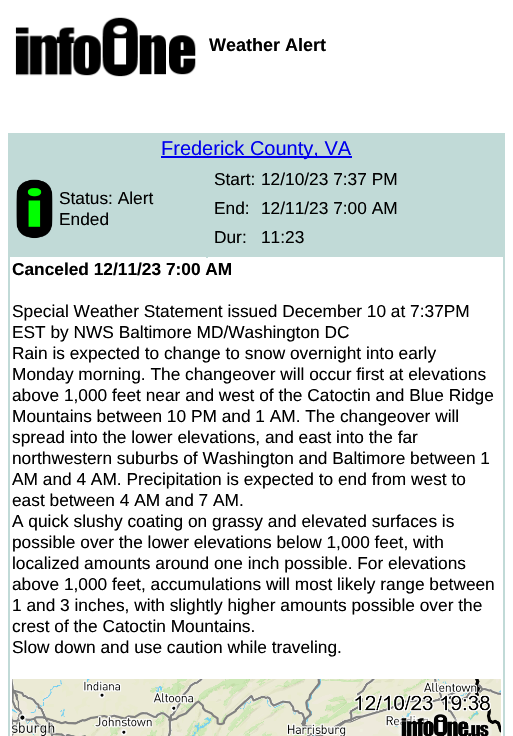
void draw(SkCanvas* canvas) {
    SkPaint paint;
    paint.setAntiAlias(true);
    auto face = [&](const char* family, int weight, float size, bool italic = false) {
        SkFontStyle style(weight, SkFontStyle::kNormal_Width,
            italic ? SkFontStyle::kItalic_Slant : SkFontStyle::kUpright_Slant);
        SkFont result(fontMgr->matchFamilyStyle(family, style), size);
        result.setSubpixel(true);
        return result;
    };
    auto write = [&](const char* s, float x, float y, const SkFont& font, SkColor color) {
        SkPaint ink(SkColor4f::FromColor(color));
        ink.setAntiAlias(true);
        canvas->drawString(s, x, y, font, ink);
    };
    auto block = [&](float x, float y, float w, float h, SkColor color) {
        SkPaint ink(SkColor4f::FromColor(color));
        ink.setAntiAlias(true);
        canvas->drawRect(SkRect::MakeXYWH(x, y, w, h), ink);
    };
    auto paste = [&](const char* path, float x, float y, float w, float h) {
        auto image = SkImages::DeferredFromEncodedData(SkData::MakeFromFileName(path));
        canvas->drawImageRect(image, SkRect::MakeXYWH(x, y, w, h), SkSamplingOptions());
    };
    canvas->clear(SK_ColorWHITE);
    paste("pic1.png", 15, 17, 181, 60);
    auto kFont1 = face("Liberation Sans", 700, 18);
    write("Weather Alert", 209, 51, kFont1, SK_ColorBLACK);
    block(8, 133, 497, 2, SkColorSetRGB(193, 218, 215));
    block(9, 162, 496, 1, SkColorSetRGB(193, 218, 215));
    block(207, 256, 298, 1, SkColorSetRGB(193, 218, 215));
    block(503, 133, 2, 603, SkColorSetRGB(193, 218, 215));
    block(8, 133, 2, 603, SkColorSetRGB(193, 218, 215));
    block(10, 135, 493, 27, SkColorSetRGB(193, 218, 215));
    block(161, 156, 191, 2, SkColorSetRGB(0, 0, 238));
    auto kFont2 = face("Liberation Sans", 400, 20);
    write("Frederick County, VA", 161, 155, kFont2, SkColorSetRGB(0, 0, 238));
    block(10, 163, 196, 94, SkColorSetRGB(193, 218, 215));
    block(206, 162, 2, 96, SkColorSetRGB(193, 218, 215));
    paste("pic2.png", 16, 179, 37, 60);
    auto kFont3 = face("Liberation Sans", 400, 17.3f);
    write("Status: Alert", 59, 204, kFont3, SK_ColorBLACK);
    write("Ended", 59, 225, kFont3, SK_ColorBLACK);
    block(208, 163, 295, 93, SkColorSetRGB(193, 218, 215));
    write("Start:", 214, 185, kFont3, SK_ColorBLACK);
    write("12/10/23 7:37 PM", 261, 185, kFont3, SK_ColorBLACK);
    write("End:", 214, 214, kFont3, SK_ColorBLACK);
    write("12/11/23 7:00 AM", 261, 214, kFont3, SK_ColorBLACK);
    write("Dur:", 214, 243, kFont3, SK_ColorBLACK);
    write("11:23", 261, 243, kFont3, SK_ColorBLACK);
    auto kFont4 = face("Liberation Sans", 700, 17.3f);
    write("Canceled 12/11/23 7:00 AM", 12, 275, kFont4, SK_ColorBLACK);
    write("Special Weather Statement issued December 10 at 7:37PM", 12, 317, kFont3, SK_ColorBLACK);
    write("EST by NWS Baltimore MD/Washington DC", 12, 338, kFont3, SK_ColorBLACK);
    write("Rain is expected to change to snow overnight into early", 12, 359, kFont3, SK_ColorBLACK);
    write("Monday morning. The changeover will occur first at elevations", 12, 380, kFont3, SK_ColorBLACK);
    write("above 1,000 feet near and west of the Catoctin and Blue Ridge", 12, 401, kFont3, SK_ColorBLACK);
    write("Mountains between 10 PM and 1 AM. The changeover will", 12, 422, kFont3, SK_ColorBLACK);
    write("spread into the lower elevations, and east into the far", 12, 443, kFont3, SK_ColorBLACK);
    write("northwestern suburbs of Washington and Baltimore between 1", 12, 464, kFont3, SK_ColorBLACK);
    write("AM and 4 AM. Precipitation is expected to end from west to", 12, 485, kFont3, SK_ColorBLACK);
    write("east between 4 AM and 7 AM.", 12, 506, kFont3, SK_ColorBLACK);
    write("A quick slushy coating on grassy and elevated surfaces is", 12, 527, kFont3, SK_ColorBLACK);
    write("possible over the lower elevations below 1,000 feet, with", 12, 548, kFont3, SK_ColorBLACK);
    write("localized amounts around one inch possible. For elevations", 12, 569, kFont3, SK_ColorBLACK);
    write("above 1,000 feet, accumulations will most likely range between", 12, 590, kFont3, SK_ColorBLACK);
    write("1 and 3 inches, with slightly higher amounts possible over the", 12, 611, kFont3, SK_ColorBLACK);
    write("crest of the Catoctin Mountains.", 12, 632, kFont3, SK_ColorBLACK);
    write("Slow down and use caution while traveling.", 12, 653, kFont3, SK_ColorBLACK);
    paste("pic3.png", 12, 679, 489, 57);
}
